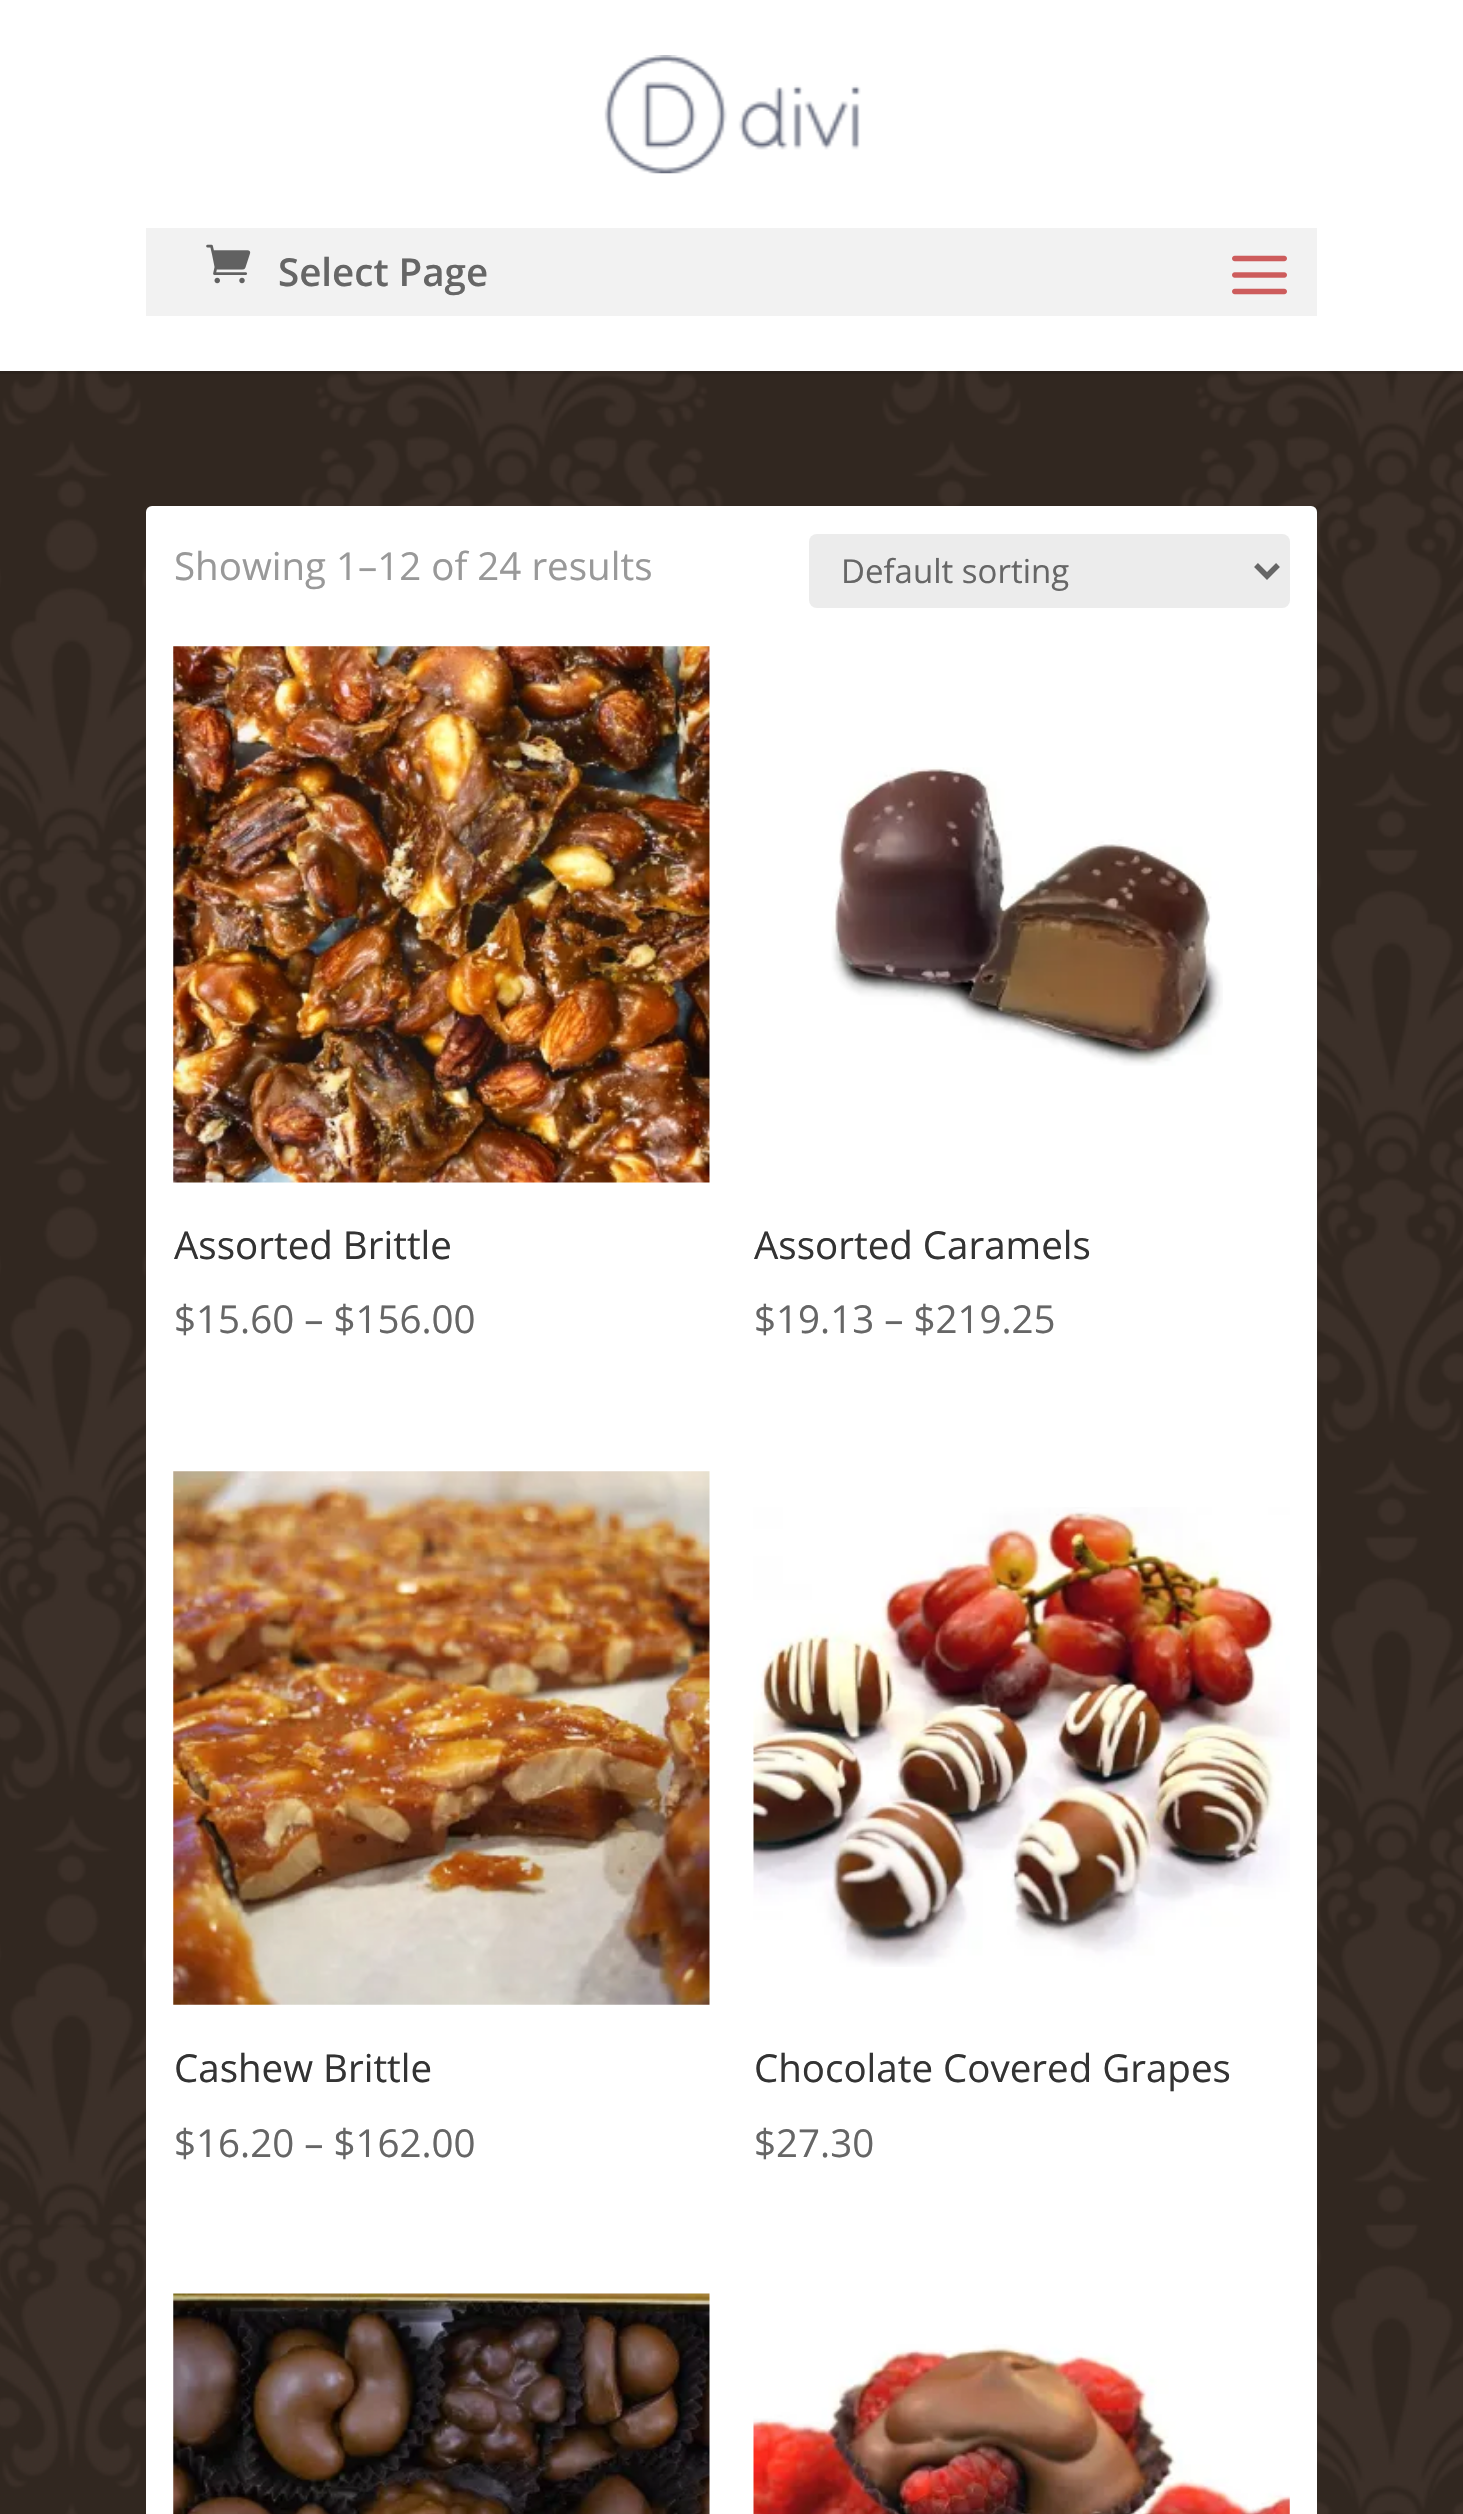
void draw(SkCanvas* canvas) {
    SkPaint paint;
    paint.setAntiAlias(true);
    auto face = [&](const char* family, int weight, float size, bool italic = false) {
        SkFontStyle style(weight, SkFontStyle::kNormal_Width,
            italic ? SkFontStyle::kItalic_Slant : SkFontStyle::kUpright_Slant);
        SkFont result(fontMgr->matchFamilyStyle(family, style), size);
        result.setSubpixel(true);
        return result;
    };
    auto write = [&](const char* s, float x, float y, const SkFont& font, SkColor color) {
        SkPaint ink(SkColor4f::FromColor(color));
        ink.setAntiAlias(true);
        canvas->drawString(s, x, y, font, ink);
    };
    auto block = [&](float x, float y, float w, float h, SkColor color) {
        SkPaint ink(SkColor4f::FromColor(color));
        ink.setAntiAlias(true);
        canvas->drawRect(SkRect::MakeXYWH(x, y, w, h), ink);
    };
    auto card = [&](float x, float y, float w, float h, float radius, SkColor color) {
        SkPaint ink(SkColor4f::FromColor(color));
        ink.setAntiAlias(true);
        canvas->drawRoundRect(SkRect::MakeXYWH(x, y, w, h), radius, radius, ink);
    };
    auto paste = [&](const char* path, float x, float y, float w, float h) {
        auto image = SkImages::DeferredFromEncodedData(SkData::MakeFromFileName(path));
        canvas->drawImageRect(image, SkRect::MakeXYWH(x, y, w, h), SkSamplingOptions());
    };
    canvas->clear(SK_ColorWHITE);
    paste("pic4.png", 0, 371, 1463, 2143);
    block(0, 371, 1463, 3, SkColorSetARGB(26, 0, 0, 0));
    paste("pic1.png", 604, 55, 257, 119);
    paste("pic2.png", 206, 244, 45, 40);
    block(146, 228, 1171, 88, SkColorSetARGB(13, 0, 0, 0));
    auto kFont1 = face("Open Sans", 600, 38.5f);
    write("Select Page", 278, 286, kFont1, SkColorSetRGB(102, 102, 102));
    paste("pic3.png", 1232, 255, 55, 40);
    card(146, 506, 1171, 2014, 6, SK_ColorWHITE);
    auto kFont2 = face("Open Sans", 400, 38.5f);
    write("Showing 1–12 of 24 results", 174, 580, kFont2, SkColorSetRGB(153, 153, 153));
    card(809, 534, 481, 74, 8, SkColorSetRGB(236, 236, 236));
    paint.setStyle(SkPaint::kStroke_Style);
    paint.setStrokeWidth(5.5f);
    paint.setColor(SkColorSetRGB(102, 102, 102));
    canvas->drawPath(SkPathBuilder().moveTo(1256, 565).lineTo(1267, 576).lineTo(1278, 565).detach(), paint);
    auto kFont3 = face("Open Sans", 400, 33);
    write("Default sorting", 841, 583, kFont3, SkColorSetRGB(102, 102, 102));
    paste("pic5.png", 173, 646, 537, 537);
    write("Assorted Brittle", 174, 1259, kFont2, SkColorSetRGB(51, 51, 51));
    write("$15.60 – $156.00", 174, 1333, kFont2, SkColorSetRGB(102, 102, 102));
    paste("pic6.png", 831, 767, 392, 299);
    write("Assorted Caramels", 754, 1259, kFont2, SkColorSetRGB(51, 51, 51));
    write("$19.13 – $219.25", 754, 1333, kFont2, SkColorSetRGB(102, 102, 102));
    paste("pic7.png", 173, 1471, 537, 534);
    write("Cashew Brittle", 174, 2082, kFont2, SkColorSetRGB(51, 51, 51));
    write("$16.20 – $162.00", 174, 2157, kFont2, SkColorSetRGB(102, 102, 102));
    paste("pic8.png", 753, 1507, 537, 460);
    write("Chocolate Covered Grapes", 754, 2082, kFont2, SkColorSetRGB(51, 51, 51));
    write("$27.30", 754, 2157, kFont2, SkColorSetRGB(102, 102, 102));
    paste("pic9.png", 173, 2293, 537, 221);
    paste("pic10.png", 753, 2344, 537, 170);
}
